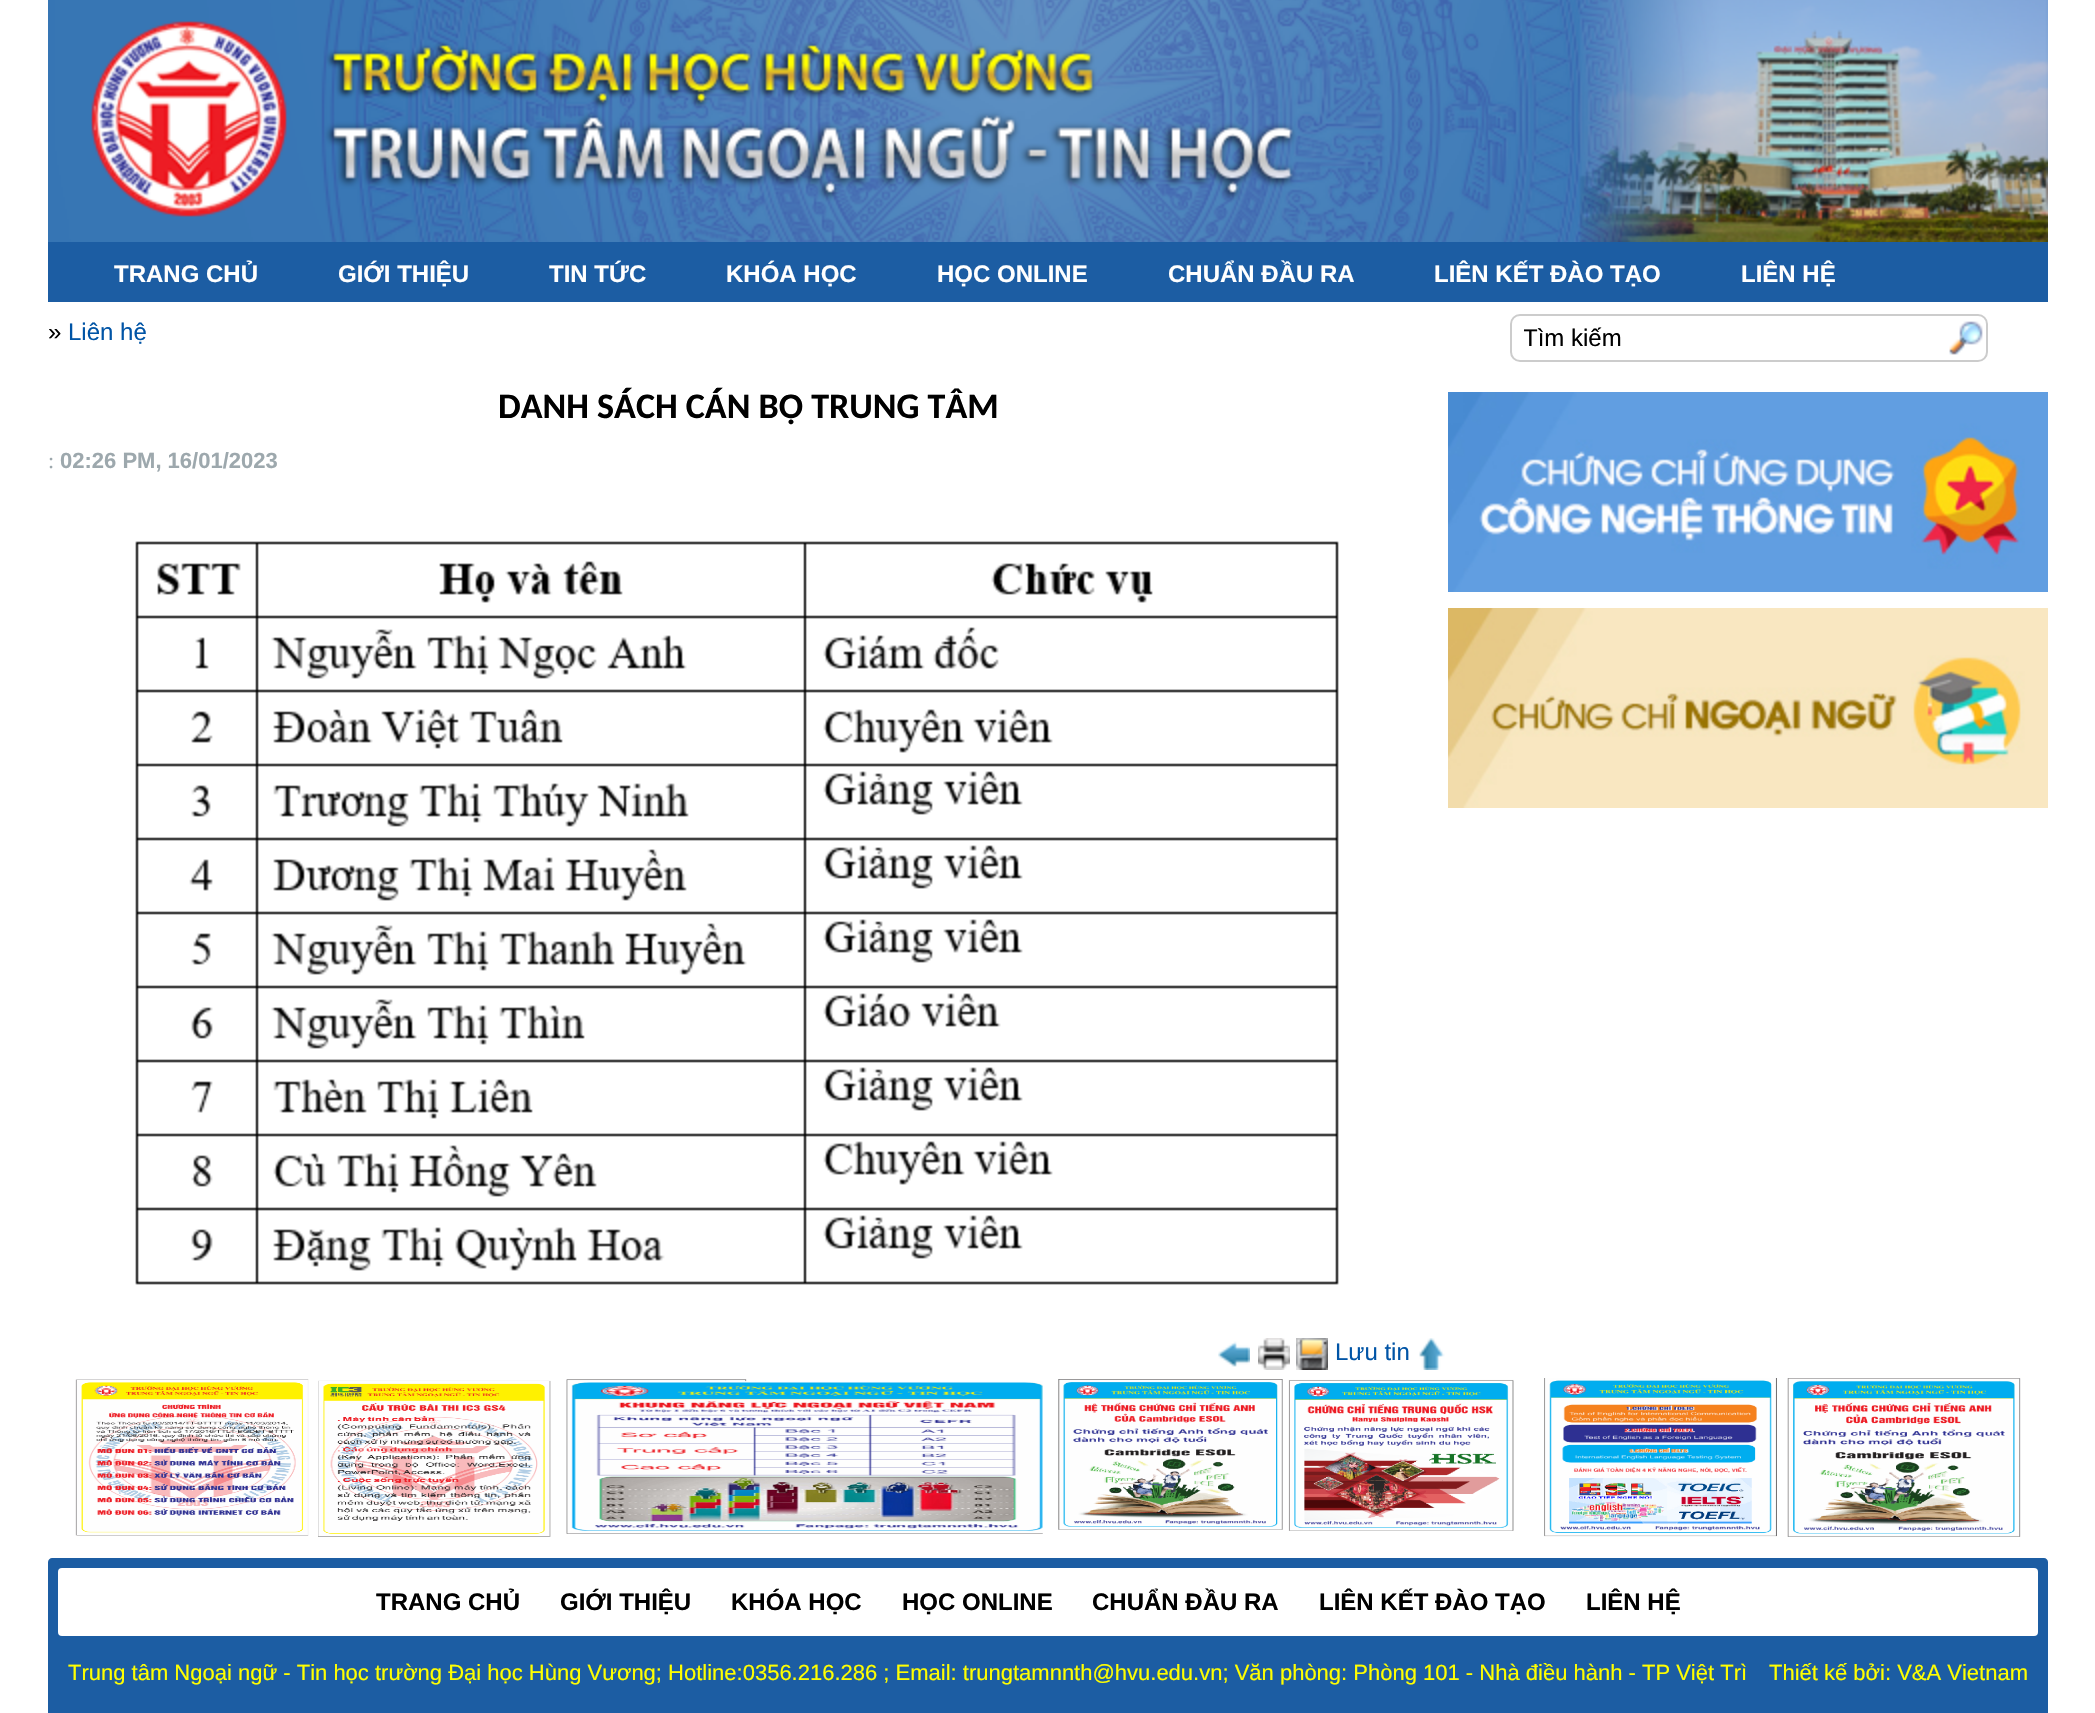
void draw(SkCanvas* canvas) {
    SkPaint paint;
    paint.setAntiAlias(true);
    auto face = [&](const char* family, int weight, float size, bool italic = false) {
        SkFontStyle style(weight, SkFontStyle::kNormal_Width,
            italic ? SkFontStyle::kItalic_Slant : SkFontStyle::kUpright_Slant);
        SkFont result(fontMgr->matchFamilyStyle(family, style), size);
        result.setSubpixel(true);
        return result;
    };
    auto write = [&](const char* s, float x, float y, const SkFont& font, SkColor color) {
        SkPaint ink(SkColor4f::FromColor(color));
        ink.setAntiAlias(true);
        canvas->drawString(s, x, y, font, ink);
    };
    auto block = [&](float x, float y, float w, float h, SkColor color) {
        SkPaint ink(SkColor4f::FromColor(color));
        ink.setAntiAlias(true);
        canvas->drawRect(SkRect::MakeXYWH(x, y, w, h), ink);
    };
    auto card = [&](float x, float y, float w, float h, float radius, SkColor color) {
        SkPaint ink(SkColor4f::FromColor(color));
        ink.setAntiAlias(true);
        canvas->drawRoundRect(SkRect::MakeXYWH(x, y, w, h), radius, radius, ink);
    };
    auto paste = [&](const char* path, float x, float y, float w, float h) {
        auto image = SkImages::DeferredFromEncodedData(SkData::MakeFromFileName(path));
        canvas->drawImageRect(image, SkRect::MakeXYWH(x, y, w, h), SkSamplingOptions());
    };
    canvas->clear(SK_ColorWHITE);
    paste("pic1.png", 48, 0, 2000, 242);
    block(48, 242, 2000, 60, SkColorSetRGB(28, 93, 163));
    auto kFont1 = face("Liberation Sans", 700, 24);
    write("TRANG CHỦ", 114, 282, kFont1, SK_ColorWHITE);
    write("GIỚI THIỆU", 338, 282, kFont1, SK_ColorWHITE);
    write("TIN TỨC", 549, 282, kFont1, SK_ColorWHITE);
    write("KHÓA HỌC", 726, 282, kFont1, SK_ColorWHITE);
    write("HỌC ONLINE", 937, 282, kFont1, SK_ColorWHITE);
    write("CHUẨN ĐẦU RA", 1168, 282, kFont1, SK_ColorWHITE);
    write("LIÊN KẾT ĐÀO TẠO", 1434, 282, kFont1, SK_ColorWHITE);
    write("LIÊN HỆ", 1741, 282, kFont1, SK_ColorWHITE);
    auto kFont2 = face("Liberation Sans", 400, 24);
    write("»", 48, 340, kFont2, SK_ColorBLACK);
    write("Liên hệ", 68, 340, kFont2, SkColorSetRGB(0, 84, 166));
    auto kFont3 = face("Carlito", 700, 36);
    write("DANH SÁCH CÁN BỘ TRUNG TÂM", 498, 418, kFont3, SK_ColorBLACK);
    auto kFont4 = face("Liberation Serif", 400, 22);
    write(":", 48, 468, kFont4, SkColorSetRGB(157, 168, 173));
    auto kFont5 = face("Liberation Sans", 700, 22);
    write("02:26 PM, 16/01/2023", 60, 468, kFont5, SkColorSetRGB(157, 168, 173));
    paste("pic2.png", 135, 541, 1204, 744);
    paste("pic3.png", 1218, 1341, 32, 26);
    paste("pic4.png", 1258, 1338, 32, 32);
    paste("pic5.png", 1296, 1338, 32, 32);
    write("Lưu tin", 1335, 1360, kFont2, SkColorSetRGB(0, 84, 166));
    paste("pic6.png", 1419, 1338, 26, 32);
    paste("pic7.png", 1949, 321, 34, 34);
    paint.setStyle(SkPaint::kStroke_Style);
    paint.setStrokeWidth(2);
    paint.setColor(SkColorSetRGB(204, 204, 204));
    canvas->drawRoundRect(SkRect::MakeXYWH(1511, 315, 476, 46), 9, 9, paint);
    canvas->save();
    canvas->clipRect(SkRect::MakeXYWH(1524, 324, 450, 28));
    write("Tìm kiếm", 1523, 346, kFont2, SK_ColorBLACK);
    canvas->restore();
    paste("pic8.png", 1448, 392, 600, 200);
    paste("pic9.png", 1448, 608, 600, 200);
    paste("pic10.png", 75, 1379, 476, 158);
    paste("pic11.png", 566, 1379, 477, 155);
    paste("pic12.png", 1058, 1379, 456, 152);
    paste("pic13.png", 1544, 1378, 477, 159);
    paint.setStyle(SkPaint::kFill_Style);
    paint.setColor(SkColorSetRGB(28, 93, 163));
    canvas->drawPath(SkPathBuilder().moveTo(52, 1558).lineTo(2044, 1558).cubicTo(2046, 1558, 2048, 1560, 2048, 1562).lineTo(2048, 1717).lineTo(48, 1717).lineTo(48, 1562).cubicTo(48, 1560, 50, 1558, 52, 1558).close().detach(), paint);
    card(58, 1568, 1980, 68, 4, SK_ColorWHITE);
    write("TRANG CHỦ", 376, 1610, kFont1, SK_ColorBLACK);
    write("GIỚI THIỆU", 560, 1610, kFont1, SK_ColorBLACK);
    write("KHÓA HỌC", 731, 1610, kFont1, SK_ColorBLACK);
    write("HỌC ONLINE", 902, 1610, kFont1, SK_ColorBLACK);
    write("CHUẨN ĐẦU RA", 1092, 1610, kFont1, SK_ColorBLACK);
    write("LIÊN KẾT ĐÀO TẠO", 1319, 1610, kFont1, SK_ColorBLACK);
    write("LIÊN HỆ", 1586, 1610, kFont1, SK_ColorBLACK);
    auto kFont6 = face("Liberation Sans", 400, 22);
    write("Trung tâm Ngoại ngữ - Tin học trường Đại học Hùng Vương; Hotline:0356.216.286 ; Email: trungtamnnth@hvu.edu.vn; Văn phòng: Phòng 101 - Nhà điều hành - TP Việt Trì", 68, 1680, kFont6, SkColorSetRGB(255, 255, 0));
    write("Thiết kế bởi: V&A Vietnam", 1769, 1680, kFont6, SkColorSetRGB(255, 255, 0));
}
